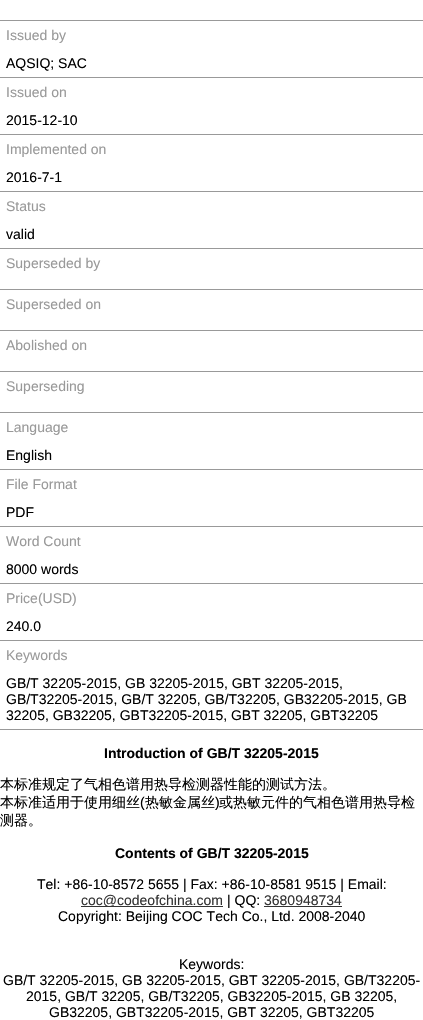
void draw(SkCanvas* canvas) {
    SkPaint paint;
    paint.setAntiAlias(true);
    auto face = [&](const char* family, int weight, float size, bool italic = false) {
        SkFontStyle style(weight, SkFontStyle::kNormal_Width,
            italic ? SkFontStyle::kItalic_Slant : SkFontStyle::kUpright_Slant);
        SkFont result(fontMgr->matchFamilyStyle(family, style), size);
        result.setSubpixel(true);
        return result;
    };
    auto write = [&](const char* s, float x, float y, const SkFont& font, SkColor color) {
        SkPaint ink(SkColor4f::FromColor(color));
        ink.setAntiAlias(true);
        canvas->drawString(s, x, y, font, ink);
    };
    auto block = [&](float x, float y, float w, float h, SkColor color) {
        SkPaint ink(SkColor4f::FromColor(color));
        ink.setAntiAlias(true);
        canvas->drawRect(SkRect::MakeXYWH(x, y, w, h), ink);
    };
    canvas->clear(SK_ColorWHITE);
    block(0, 20, 423, 1, SkColorSetRGB(153, 153, 153));
    auto kFont1 = face("Liberation Sans", 400, 14);
    write("Issued by", 6, 40, kFont1, SkColorSetRGB(153, 153, 153));
    block(0, 77, 423, 1, SkColorSetRGB(153, 153, 153));
    write("AQSIQ; SAC", 6, 68, kFont1, SK_ColorBLACK);
    write("Issued on", 6, 97, kFont1, SkColorSetRGB(153, 153, 153));
    block(0, 134, 423, 1, SkColorSetRGB(153, 153, 153));
    write("2015-12-10", 6, 125, kFont1, SK_ColorBLACK);
    write("Implemented on", 6, 154, kFont1, SkColorSetRGB(153, 153, 153));
    block(0, 191, 423, 1, SkColorSetRGB(153, 153, 153));
    write("2016-7-1", 6, 182, kFont1, SK_ColorBLACK);
    write("Status", 6, 211, kFont1, SkColorSetRGB(153, 153, 153));
    block(0, 248, 423, 1, SkColorSetRGB(153, 153, 153));
    write("valid", 6, 239, kFont1, SK_ColorBLACK);
    write("Superseded by", 6, 268, kFont1, SkColorSetRGB(153, 153, 153));
    block(0, 289, 423, 1, SkColorSetRGB(153, 153, 153));
    write("Superseded on", 6, 309, kFont1, SkColorSetRGB(153, 153, 153));
    block(0, 330, 423, 1, SkColorSetRGB(153, 153, 153));
    write("Abolished on", 6, 350, kFont1, SkColorSetRGB(153, 153, 153));
    block(0, 371, 423, 1, SkColorSetRGB(153, 153, 153));
    write("Superseding", 6, 391, kFont1, SkColorSetRGB(153, 153, 153));
    block(0, 412, 423, 1, SkColorSetRGB(153, 153, 153));
    write("Language", 6, 432, kFont1, SkColorSetRGB(153, 153, 153));
    block(0, 469, 423, 1, SkColorSetRGB(153, 153, 153));
    write("English", 6, 460, kFont1, SK_ColorBLACK);
    write("File Format", 6, 489, kFont1, SkColorSetRGB(153, 153, 153));
    block(0, 526, 423, 1, SkColorSetRGB(153, 153, 153));
    write("PDF", 6, 517, kFont1, SK_ColorBLACK);
    write("Word Count", 6, 546, kFont1, SkColorSetRGB(153, 153, 153));
    block(0, 583, 423, 1, SkColorSetRGB(153, 153, 153));
    write("8000 words", 6, 574, kFont1, SK_ColorBLACK);
    write("Price(USD)", 6, 603, kFont1, SkColorSetRGB(153, 153, 153));
    block(0, 640, 423, 1, SkColorSetRGB(153, 153, 153));
    write("240.0", 6, 631, kFont1, SK_ColorBLACK);
    write("Keywords", 6, 660, kFont1, SkColorSetRGB(153, 153, 153));
    block(0, 729, 423, 1, SkColorSetRGB(153, 153, 153));
    write("GB/T 32205-2015, GB 32205-2015, GBT 32205-2015,", 6, 688, kFont1, SK_ColorBLACK);
    write("GB/T32205-2015, GB/T 32205, GB/T32205, GB32205-2015, GB", 6, 704, kFont1, SK_ColorBLACK);
    write("32205, GB32205, GBT32205-2015, GBT 32205, GBT32205", 6, 720, kFont1, SK_ColorBLACK);
    auto kFont2 = face("Liberation Sans", 700, 14);
    write("Introduction of GB/T 32205-2015", 104, 758, kFont2, SK_ColorBLACK);
    auto kFont3 = face("WenQuanYi Zen Hei", 500, 14);
    write("本标准规定了气相色谱用热导检测器性能的测试方法。", 0, 789, kFont3, SK_ColorBLACK);
    write("本标准适用于使用细丝", 0, 807, kFont3, SK_ColorBLACK);
    write("(", 140, 807, kFont1, SK_ColorBLACK);
    write("热敏金属丝", 145, 807, kFont3, SK_ColorBLACK);
    write(")", 215, 807, kFont1, SK_ColorBLACK);
    write("或热敏元件的气相色谱用热导检", 219, 807, kFont3, SK_ColorBLACK);
    write("测器。", 0, 825, kFont3, SK_ColorBLACK);
    write("Contents of GB/T 32205-2015", 115, 858, kFont2, SK_ColorBLACK);
    write("Tel: +86-10-8572 5655 | Fax: +86-10-8581 9515 | Email:", 37, 889, kFont1, SK_ColorBLACK);
    block(81, 906, 142, 1, SkColorSetRGB(51, 51, 51));
    write("coc@codeofchina.com", 81, 905, kFont1, SkColorSetRGB(51, 51, 51));
    write("| QQ:", 227, 905, kFont1, SK_ColorBLACK);
    write("3680948734", 264, 905, kFont1, SkColorSetRGB(51, 51, 51));
    block(264, 906, 78, 1, SkColorSetRGB(51, 51, 51));
    write("Copyright: Beijing COC Tech Co., Ltd. 2008-2040", 58, 921, kFont1, SK_ColorBLACK);
    write("Keywords:", 179, 969, kFont1, SK_ColorBLACK);
    write("GB/T 32205-2015, GB 32205-2015, GBT 32205-2015, GB/T32205-", 3, 985, kFont1, SK_ColorBLACK);
    write("2015, GB/T 32205, GB/T32205, GB32205-2015, GB 32205,", 26, 1001, kFont1, SK_ColorBLACK);
    write("GB32205, GBT32205-2015, GBT 32205, GBT32205", 49, 1017, kFont1, SK_ColorBLACK);
}
